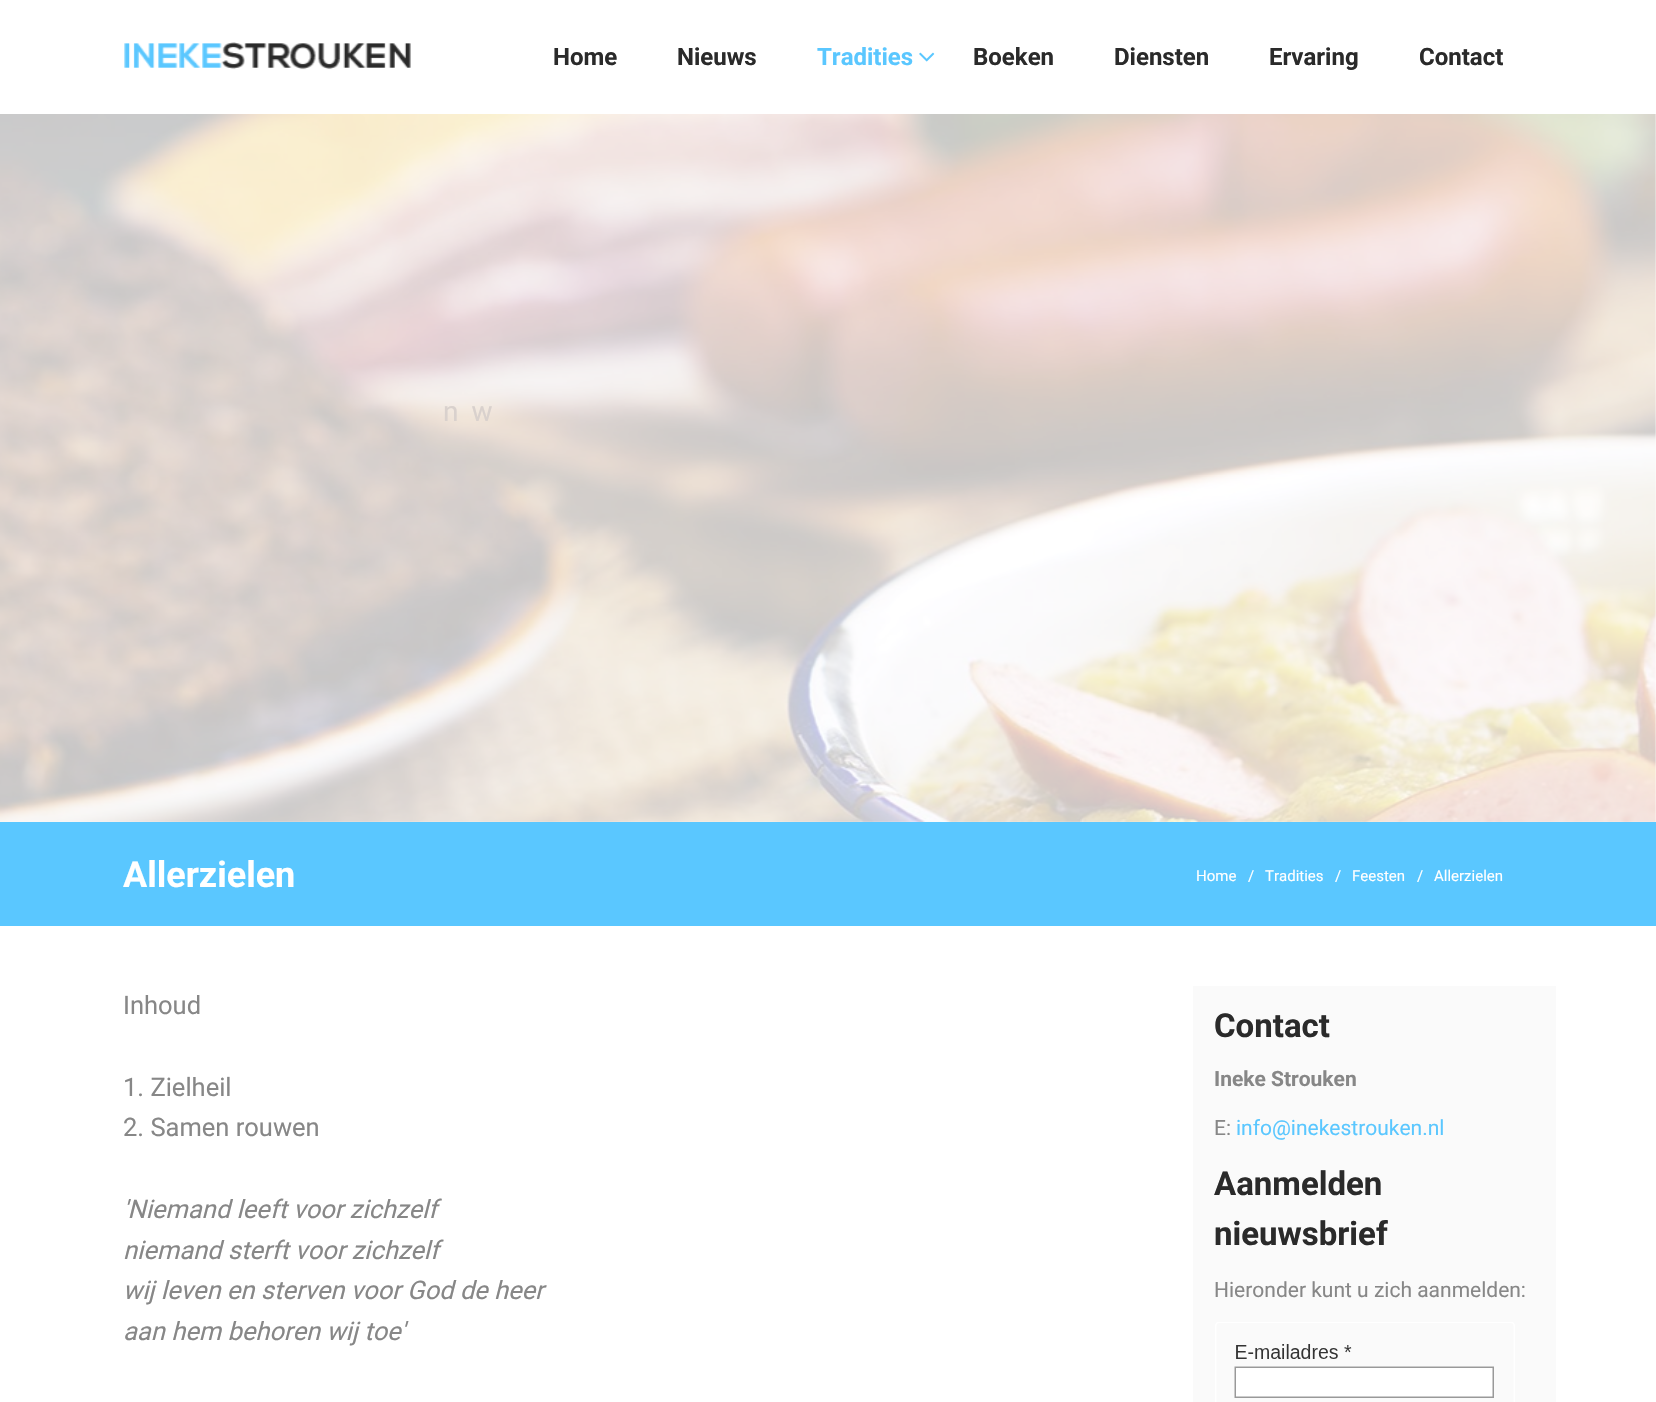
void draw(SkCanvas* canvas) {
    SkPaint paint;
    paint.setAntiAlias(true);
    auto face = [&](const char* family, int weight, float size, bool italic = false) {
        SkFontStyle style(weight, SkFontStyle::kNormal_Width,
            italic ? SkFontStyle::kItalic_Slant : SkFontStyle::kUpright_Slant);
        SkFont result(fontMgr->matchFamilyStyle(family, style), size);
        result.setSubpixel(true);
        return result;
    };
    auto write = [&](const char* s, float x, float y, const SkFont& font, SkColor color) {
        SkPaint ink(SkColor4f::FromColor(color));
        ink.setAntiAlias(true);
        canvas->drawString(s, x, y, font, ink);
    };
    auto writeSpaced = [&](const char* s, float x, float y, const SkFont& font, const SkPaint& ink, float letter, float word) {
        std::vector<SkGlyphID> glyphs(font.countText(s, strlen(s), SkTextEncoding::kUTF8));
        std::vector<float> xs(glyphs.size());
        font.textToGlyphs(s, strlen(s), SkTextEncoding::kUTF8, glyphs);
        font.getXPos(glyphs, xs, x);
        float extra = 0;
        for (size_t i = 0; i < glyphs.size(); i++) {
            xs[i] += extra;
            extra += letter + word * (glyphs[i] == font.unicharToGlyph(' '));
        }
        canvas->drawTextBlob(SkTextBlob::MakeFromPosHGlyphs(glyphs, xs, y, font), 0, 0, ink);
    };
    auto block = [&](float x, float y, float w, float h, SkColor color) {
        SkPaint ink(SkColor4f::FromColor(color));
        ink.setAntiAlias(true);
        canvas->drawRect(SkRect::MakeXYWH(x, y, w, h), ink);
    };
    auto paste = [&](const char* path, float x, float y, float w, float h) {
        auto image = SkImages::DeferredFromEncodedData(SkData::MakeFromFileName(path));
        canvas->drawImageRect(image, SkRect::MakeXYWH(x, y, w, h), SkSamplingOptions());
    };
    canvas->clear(SK_ColorWHITE);
    paste("pic1.png", 124, 42, 287, 28);
    auto kFont1 = face("Roboto", 700, 24);
    write("Home", 553, 65, kFont1, SkColorSetRGB(42, 42, 42));
    write("Nieuws", 677, 65, kFont1, SkColorSetRGB(42, 42, 42));
    write("Tradities", 817, 65, kFont1, SkColorSetRGB(90, 199, 255));
    paste("pic2.png", 919, 52, 16, 10);
    write("Boeken", 973, 65, kFont1, SkColorSetRGB(42, 42, 42));
    write("Diensten", 1114, 65, kFont1, SkColorSetRGB(42, 42, 42));
    write("Ervaring", 1269, 65, kFont1, SkColorSetRGB(42, 42, 42));
    write("Contact", 1419, 65, kFont1, SkColorSetRGB(42, 42, 42));
    paste("pic3.png", 0, 114, 1656, 708);
    auto kFont2 = face("Roboto", 400, 28);
    paint.setColor(SkColorSetRGB(217, 209, 205));
    writeSpaced("n w", 443, 421, kFont2, paint, 3, 0);
    block(0, 822, 1656, 104, SkColorSetRGB(90, 199, 255));
    auto kFont3 = face("Roboto", 700, 36);
    write("Allerzielen", 123, 887, kFont3, SK_ColorWHITE);
    auto kFont4 = face("Roboto", 400, 15);
    write("Home", 1196, 881, kFont4, SK_ColorWHITE);
    write("/", 1248, 881, kFont4, SK_ColorWHITE);
    write("Tradities", 1265, 881, kFont4, SK_ColorWHITE);
    write("/", 1335, 881, kFont4, SK_ColorWHITE);
    write("Feesten", 1352, 881, kFont4, SK_ColorWHITE);
    write("/", 1417, 881, kFont4, SK_ColorWHITE);
    write("Allerzielen", 1434, 881, kFont4, SK_ColorWHITE);
    auto kFont5 = face("Roboto", 400, 25.5f);
    write("Inhoud", 123, 1014, kFont5, SkColorSetRGB(135, 135, 135));
    write("1. Zielheil", 123, 1096, kFont5, SkColorSetRGB(135, 135, 135));
    write("2. Samen rouwen", 123, 1136, kFont5, SkColorSetRGB(135, 135, 135));
    auto kFont6 = face("Roboto", 400, 25.5f, true);
    write("'Niemand leeft voor zichzelf", 123, 1218, kFont6, SkColorSetRGB(135, 135, 135));
    write("niemand sterft voor zichzelf", 123, 1259, kFont6, SkColorSetRGB(135, 135, 135));
    write("wij leven en sterven voor God de heer", 123, 1299, kFont6, SkColorSetRGB(135, 135, 135));
    write("aan hem behoren wij toe'", 123, 1340, kFont6, SkColorSetRGB(135, 135, 135));
    block(1193, 986, 363, 416, SkColorSetRGB(250, 250, 250));
    auto kFont7 = face("Roboto", 700, 33);
    write("Contact", 1214, 1037, kFont7, SkColorSetRGB(42, 42, 42));
    auto kFont8 = face("Roboto", 700, 21);
    write("Ineke Strouken", 1214, 1086, kFont8, SkColorSetRGB(135, 135, 135));
    auto kFont9 = face("Roboto", 400, 21);
    write("E:", 1214, 1135, kFont9, SkColorSetRGB(135, 135, 135));
    write("info@inekestrouken.nl", 1236, 1135, kFont9, SkColorSetRGB(90, 199, 255));
    write("Aanmelden", 1214, 1195, kFont7, SkColorSetRGB(42, 42, 42));
    write("nieuwsbrief", 1214, 1245, kFont7, SkColorSetRGB(42, 42, 42));
    write("Hieronder kunt u zich aanmelden:", 1214, 1297, kFont9, SkColorSetRGB(135, 135, 135));
    paste("pic4.png", 1215, 1322, 300, 80);
}
